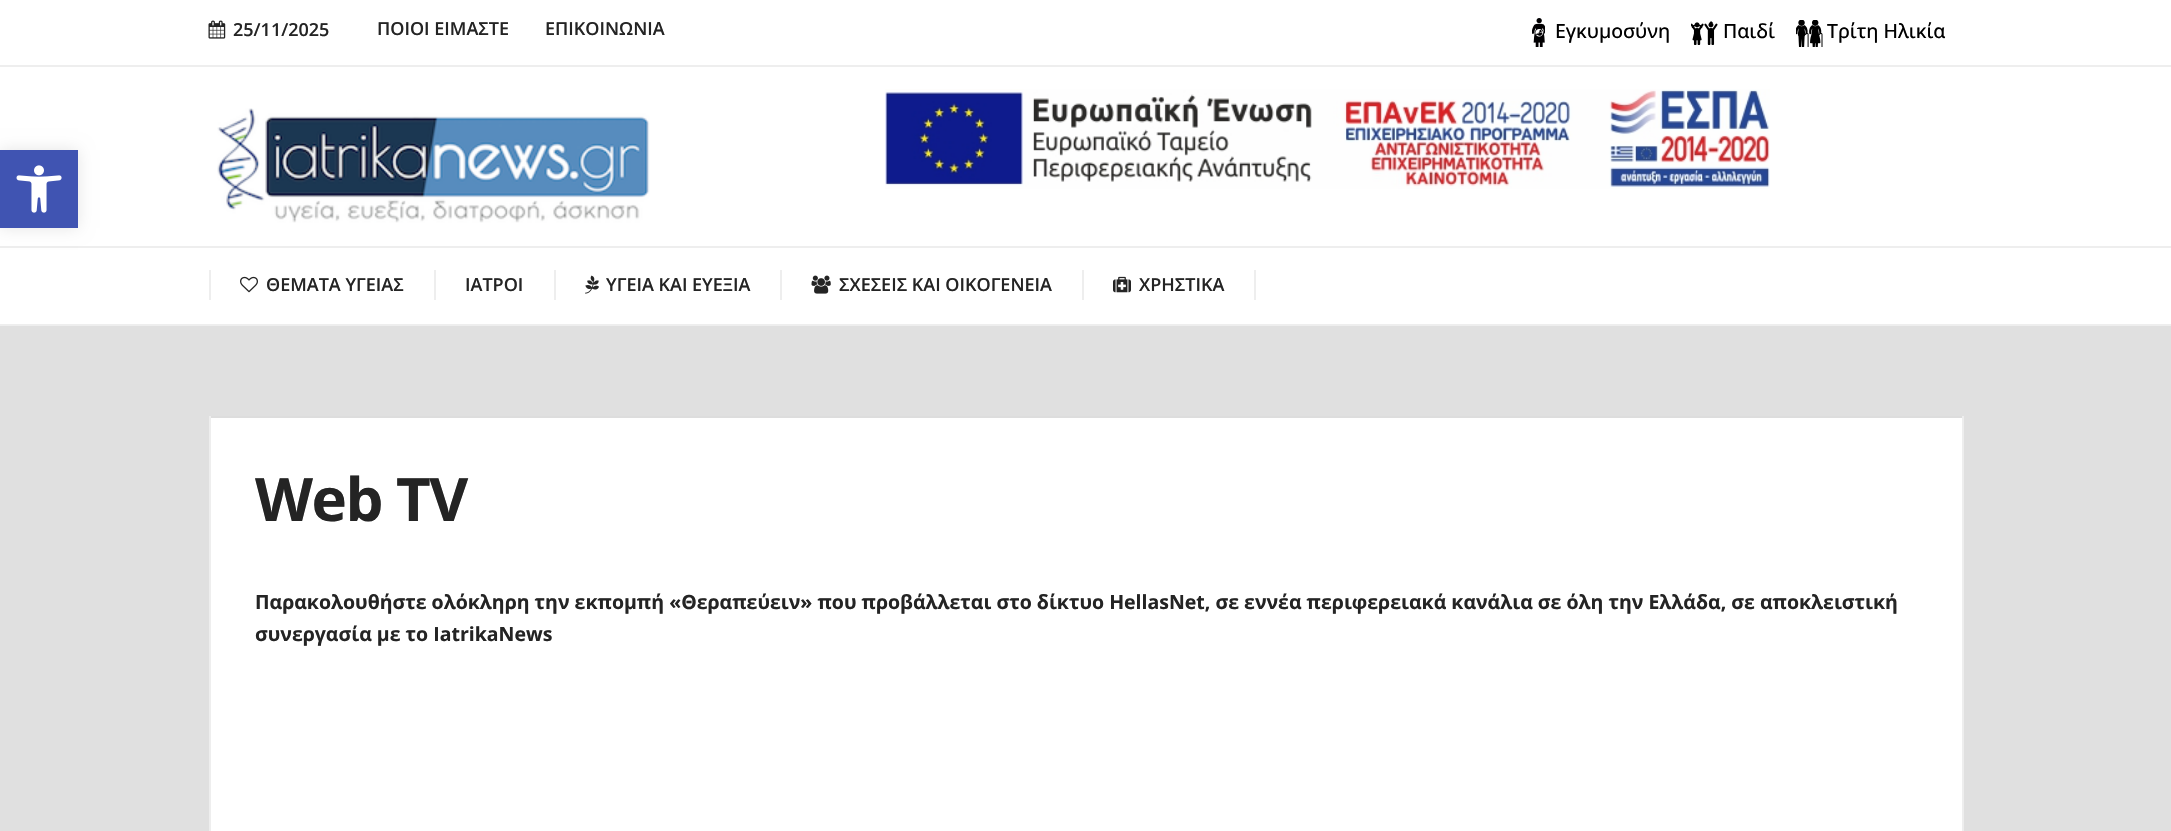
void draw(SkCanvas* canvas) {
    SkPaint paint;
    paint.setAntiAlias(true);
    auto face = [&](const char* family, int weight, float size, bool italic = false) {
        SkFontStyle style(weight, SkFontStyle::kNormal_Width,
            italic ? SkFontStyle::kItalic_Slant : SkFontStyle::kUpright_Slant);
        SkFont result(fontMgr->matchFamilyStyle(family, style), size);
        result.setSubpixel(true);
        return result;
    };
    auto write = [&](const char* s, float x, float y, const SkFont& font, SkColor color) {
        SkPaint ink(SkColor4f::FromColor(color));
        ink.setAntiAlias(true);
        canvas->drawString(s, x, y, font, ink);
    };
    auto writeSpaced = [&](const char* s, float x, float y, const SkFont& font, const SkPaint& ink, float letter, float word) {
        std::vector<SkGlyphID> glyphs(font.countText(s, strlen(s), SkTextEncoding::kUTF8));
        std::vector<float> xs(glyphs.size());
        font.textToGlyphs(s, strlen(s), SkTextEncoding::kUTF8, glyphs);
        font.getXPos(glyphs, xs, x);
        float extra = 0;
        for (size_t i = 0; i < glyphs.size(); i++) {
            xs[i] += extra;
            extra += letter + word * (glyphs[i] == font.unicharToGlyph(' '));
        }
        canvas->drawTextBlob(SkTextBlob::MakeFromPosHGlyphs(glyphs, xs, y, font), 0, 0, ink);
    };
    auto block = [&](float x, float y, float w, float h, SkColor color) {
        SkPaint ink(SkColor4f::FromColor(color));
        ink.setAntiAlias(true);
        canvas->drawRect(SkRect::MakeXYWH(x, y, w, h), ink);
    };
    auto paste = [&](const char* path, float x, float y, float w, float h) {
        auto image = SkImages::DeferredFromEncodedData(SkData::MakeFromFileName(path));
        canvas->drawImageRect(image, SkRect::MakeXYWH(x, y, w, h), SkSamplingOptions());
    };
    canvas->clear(SkColorSetRGB(224, 224, 224));
    block(0, 0, 2171, 324, SK_ColorWHITE);
    block(0, 246, 2171, 2, SkColorSetRGB(238, 238, 238));
    paint.setColor(SkColorSetARGB(26, 0, 0, 0));
    paint.setMaskFilter(SkMaskFilter::MakeBlur(kNormal_SkBlurStyle, 7.5f));
    canvas->drawRect(SkRect::MakeXYWH(0, 150, 78, 78), paint);
    paint.setMaskFilter(nullptr);
    block(0, 150, 78, 78, SkColorSetRGB(64, 84, 178));
    paste("pic1.png", 16, 165, 46, 48);
    block(0, 65, 2171, 2, SkColorSetRGB(238, 238, 238));
    paste("pic2.png", 208, 20, 18, 19);
    auto kFont1 = face("Open Sans", 600, 18);
    write("25/11/2025", 233, 36, kFont1, SkColorSetRGB(36, 36, 36));
    write("ΠΟΙΟΙ ΕΙΜΑΣΤΕ", 377, 35, kFont1, SkColorSetRGB(36, 36, 36));
    write("ΕΠΙΚΟΙΝΩΝΙΑ", 545, 35, kFont1, SkColorSetRGB(36, 36, 36));
    paste("pic3.png", 1532, 18, 13, 29);
    auto kFont2 = face("Open Sans", 500, 19.5f);
    write("Εγκυμοσύνη", 1555, 38, kFont2, SK_ColorBLACK);
    paste("pic4.png", 1691, 21, 27, 24);
    write("Παιδί", 1723, 38, kFont2, SK_ColorBLACK);
    paste("pic5.png", 1796, 20, 27, 27);
    write("Τρίτη Ηλικία", 1827, 38, kFont2, SK_ColorBLACK);
    paste("pic6.png", 217, 108, 433, 115);
    paste("pic7.png", 885, 89, 885, 100);
    block(0, 324, 2171, 2, SkColorSetRGB(238, 238, 238));
    block(434, 270, 2, 30, SkColorSetRGB(238, 238, 238));
    block(209, 270, 2, 30, SkColorSetRGB(238, 238, 238));
    paste("pic8.png", 240, 276, 18, 17);
    write("ΘΕΜΑΤΑ ΥΓΕΙΑΣ", 266, 291, kFont1, SkColorSetRGB(36, 36, 36));
    block(554, 270, 2, 30, SkColorSetRGB(238, 238, 238));
    write("ΙΑΤΡΟΙ", 465, 291, kFont1, SkColorSetRGB(36, 36, 36));
    block(780, 270, 2, 30, SkColorSetRGB(238, 238, 238));
    paste("pic9.png", 585, 275, 14, 19);
    write("ΥΓΕΙΑ ΚΑΙ ΕΥΕΞΙΑ", 606, 291, kFont1, SkColorSetRGB(36, 36, 36));
    block(1082, 270, 2, 30, SkColorSetRGB(238, 238, 238));
    paste("pic10.png", 811, 275, 20, 19);
    write("ΣΧΕΣΕΙΣ ΚΑΙ ΟΙΚΟΓΕΝΕΙΑ", 839, 291, kFont1, SkColorSetRGB(36, 36, 36));
    block(1254, 270, 2, 30, SkColorSetRGB(238, 238, 238));
    paste("pic11.png", 1113, 276, 18, 17);
    write("ΧΡΗΣΤΙΚΑ", 1139, 291, kFont1, SkColorSetRGB(36, 36, 36));
    block(211, 418, 1751, 413, SK_ColorWHITE);
    block(209, 416, 1755, 2, SkColorSetRGB(221, 221, 221));
    block(1962, 416, 2, 415, SkColorSetRGB(238, 238, 238));
    block(209, 416, 2, 415, SkColorSetRGB(238, 238, 238));
    auto kFont3 = face("Open Sans", 700, 60);
    paint.setColor(SkColorSetRGB(36, 36, 36));
    writeSpaced("Web TV", 255, 521, kFont3, paint, -1.5f, 0);
    auto kFont4 = face("Open Sans", 700, 19.5f);
    write("Παρακολουθήστε ολόκληρη την εκπομπή «Θεραπεύειν» που προβάλλεται στο δίκτυο HellasNet, σε εννέα περιφερειακά κανάλια σε όλη την Ελλάδα, σε αποκλειστική", 255, 609, kFont4, SkColorSetRGB(36, 36, 36));
    write("συνεργασία με το IatrikaNews", 255, 641, kFont4, SkColorSetRGB(36, 36, 36));
}
